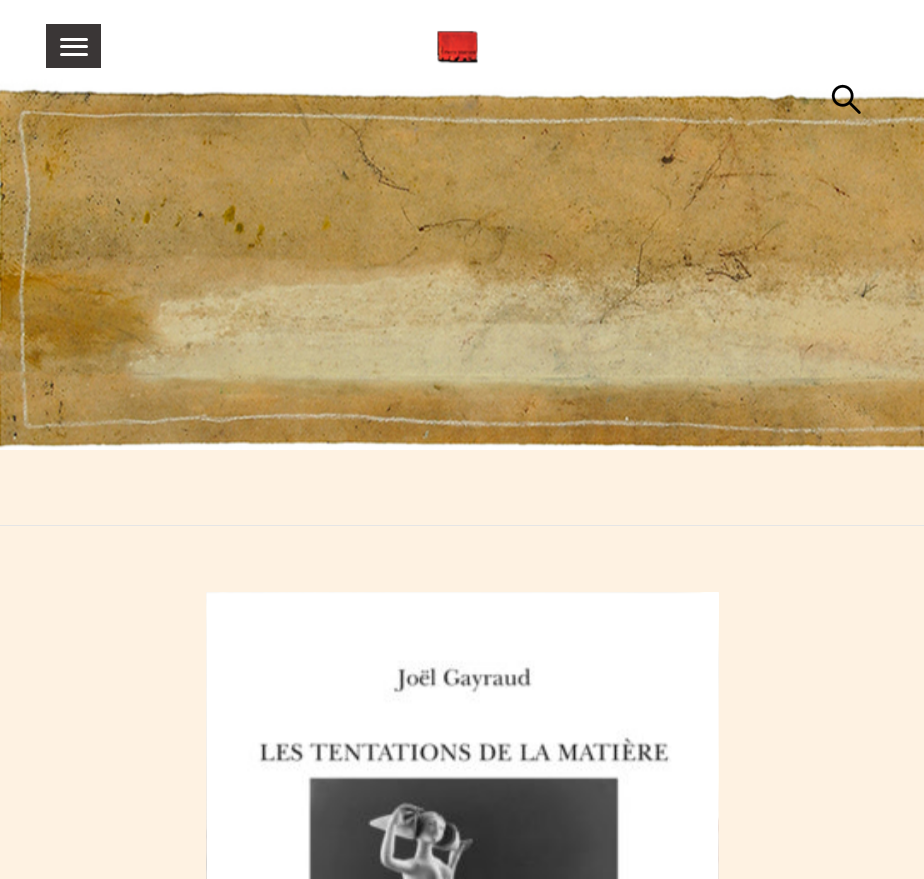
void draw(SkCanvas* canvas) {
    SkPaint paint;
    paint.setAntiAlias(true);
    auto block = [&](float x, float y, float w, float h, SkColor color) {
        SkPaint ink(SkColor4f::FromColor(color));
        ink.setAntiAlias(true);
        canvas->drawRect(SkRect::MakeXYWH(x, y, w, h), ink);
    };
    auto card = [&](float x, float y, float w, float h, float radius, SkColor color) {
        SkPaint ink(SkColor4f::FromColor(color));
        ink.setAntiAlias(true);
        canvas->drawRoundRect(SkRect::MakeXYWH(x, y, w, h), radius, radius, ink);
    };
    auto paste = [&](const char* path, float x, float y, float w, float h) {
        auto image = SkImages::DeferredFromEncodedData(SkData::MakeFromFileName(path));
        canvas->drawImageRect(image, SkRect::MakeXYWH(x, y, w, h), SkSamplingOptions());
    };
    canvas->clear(SkColorSetRGB(254, 242, 226));
    block(0, 525, 924, 1, SkColorSetRGB(229, 229, 229));
    paste("pic1.png", 0, 0, 924, 450);
    block(46, 24, 55, 44, SkColorSetRGB(58, 54, 54));
    card(60, 38, 28, 3, 1.5f, SK_ColorWHITE);
    card(60, 45, 28, 3, 1.5f, SK_ColorWHITE);
    card(60, 53, 28, 3, 1.5f, SK_ColorWHITE);
    paste("pic2.png", 437, 30, 41, 34);
    paste("pic3.png", 831, 84, 30, 30);
    paste("pic4.png", 206, 592, 513, 287);
    paste("pic5.png", 206, 592, 513, 287);
}
